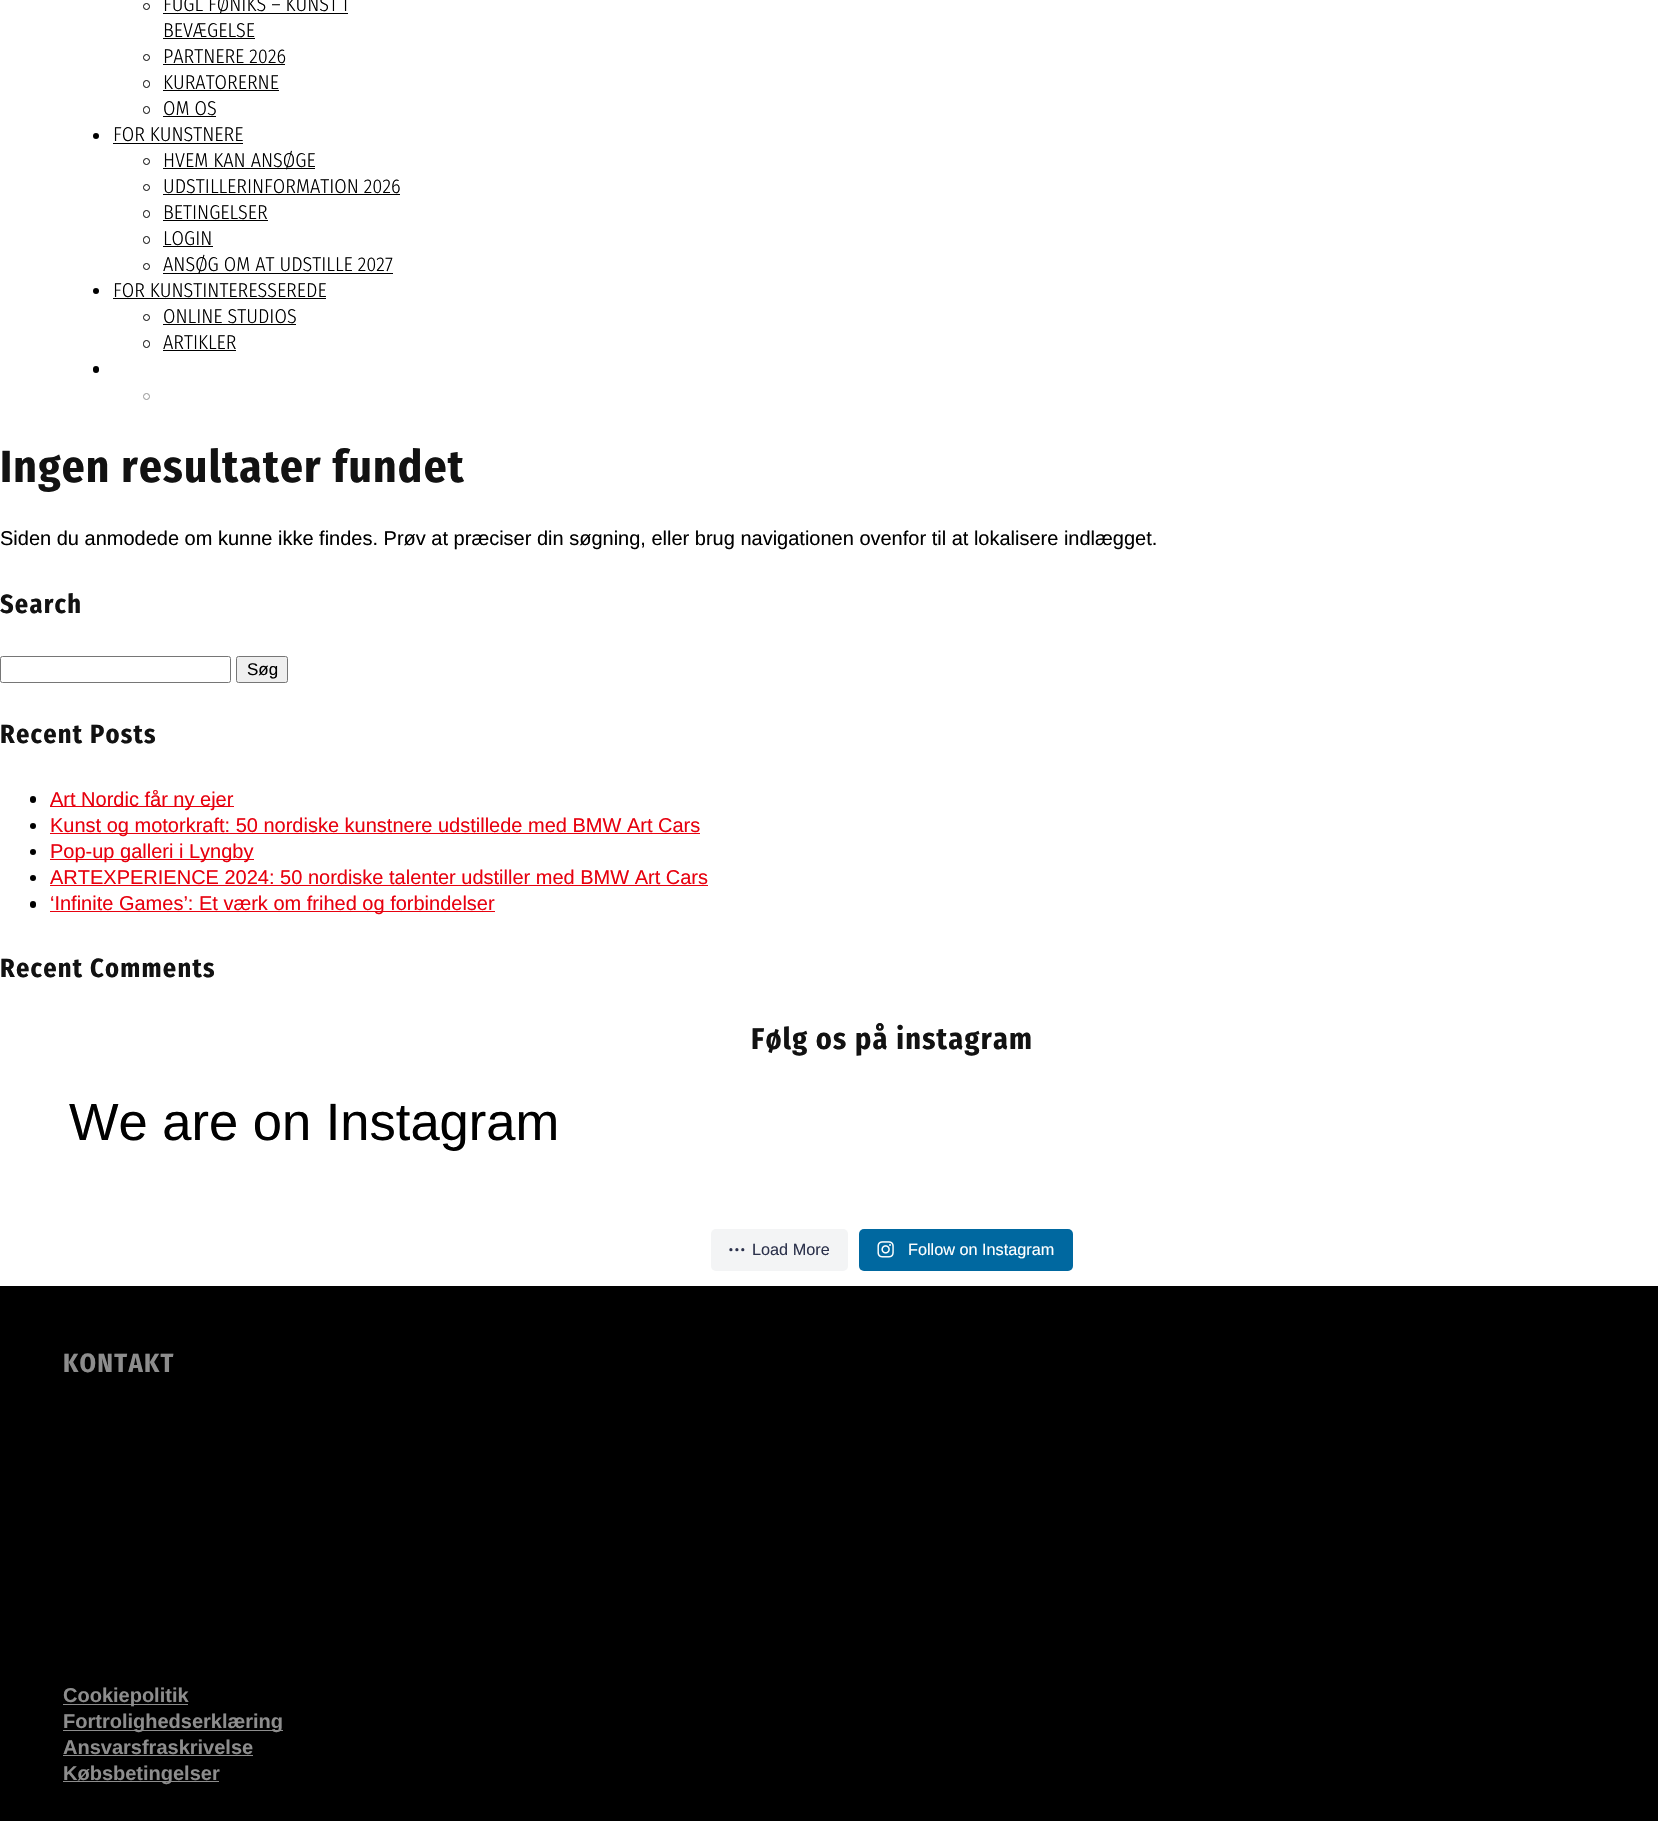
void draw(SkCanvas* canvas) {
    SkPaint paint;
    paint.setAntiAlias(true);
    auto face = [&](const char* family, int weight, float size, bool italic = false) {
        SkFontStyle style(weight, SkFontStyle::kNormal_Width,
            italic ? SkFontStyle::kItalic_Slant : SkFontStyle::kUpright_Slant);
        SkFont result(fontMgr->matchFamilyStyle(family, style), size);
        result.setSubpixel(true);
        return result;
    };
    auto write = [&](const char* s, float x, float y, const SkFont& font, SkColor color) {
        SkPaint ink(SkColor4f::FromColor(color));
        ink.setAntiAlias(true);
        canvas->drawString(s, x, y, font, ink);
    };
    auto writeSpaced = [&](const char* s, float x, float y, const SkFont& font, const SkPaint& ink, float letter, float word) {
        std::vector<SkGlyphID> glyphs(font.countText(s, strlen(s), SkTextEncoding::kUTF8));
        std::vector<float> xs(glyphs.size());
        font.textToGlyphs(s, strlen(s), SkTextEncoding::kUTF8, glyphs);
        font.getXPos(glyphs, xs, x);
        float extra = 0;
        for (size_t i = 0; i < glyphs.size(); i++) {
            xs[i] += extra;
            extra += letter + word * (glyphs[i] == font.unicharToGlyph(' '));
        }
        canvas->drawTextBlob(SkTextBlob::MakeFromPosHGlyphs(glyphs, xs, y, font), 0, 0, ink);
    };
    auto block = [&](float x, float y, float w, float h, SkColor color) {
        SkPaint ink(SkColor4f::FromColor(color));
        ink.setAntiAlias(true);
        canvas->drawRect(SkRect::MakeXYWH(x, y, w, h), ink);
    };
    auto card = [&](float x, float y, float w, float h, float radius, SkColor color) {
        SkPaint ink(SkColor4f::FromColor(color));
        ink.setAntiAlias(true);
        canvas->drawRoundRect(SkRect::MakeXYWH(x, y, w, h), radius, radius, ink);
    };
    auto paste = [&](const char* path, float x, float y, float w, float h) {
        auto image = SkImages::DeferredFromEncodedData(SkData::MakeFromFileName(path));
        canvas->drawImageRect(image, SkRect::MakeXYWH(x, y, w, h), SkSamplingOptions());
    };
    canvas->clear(SK_ColorWHITE);
    paint.setStyle(SkPaint::kStroke_Style);
    paint.setStrokeWidth(1);
    paint.setColor(SK_ColorBLACK);
    canvas->drawCircle(146.5f, 6.5f, 3, paint);
    block(163, 13, 185, 1, SK_ColorBLACK);
    auto kFont1 = face("Fira Sans Condensed", 300, 20);
    write("FUGL FØNIKS – KUNST I", 163, 11, kFont1, SK_ColorBLACK);
    write("BEVÆGELSE", 163, 37, kFont1, SK_ColorBLACK);
    block(163, 38, 92, 1, SK_ColorBLACK);
    canvas->drawCircle(146.5f, 57.5f, 3, paint);
    write("PARTNERE 2026", 163, 63, kFont1, SK_ColorBLACK);
    block(163, 64, 122, 1, SK_ColorBLACK);
    canvas->drawRoundRect(SkRect::MakeXYWH(143.5f, 80.5f, 6, 7), 3, 3, paint);
    write("KURATORERNE", 163, 89, kFont1, SK_ColorBLACK);
    block(163, 90, 116, 1, SK_ColorBLACK);
    canvas->drawRoundRect(SkRect::MakeXYWH(143.5f, 106.5f, 6, 7), 3, 3, paint);
    write("OM OS", 163, 115, kFont1, SK_ColorBLACK);
    block(163, 116, 53, 1, SK_ColorBLACK);
    paint.setStyle(SkPaint::kFill_Style);
    canvas->drawCircle(96, 136, 3, paint);
    write("FOR KUNSTNERE", 113, 141, kFont1, SK_ColorBLACK);
    block(113, 143, 130, 1, SK_ColorBLACK);
    paint.setStyle(SkPaint::kStroke_Style);
    canvas->drawCircle(146.5f, 161.5f, 3, paint);
    block(163, 168, 152, 1, SK_ColorBLACK);
    write("HVEM KAN ANSØGE", 163, 167, kFont1, SK_ColorBLACK);
    canvas->drawCircle(146.5f, 187.5f, 3, paint);
    write("UDSTILLERINFORMATION 2026", 163, 193, kFont1, SK_ColorBLACK);
    block(163, 194, 237, 1, SK_ColorBLACK);
    canvas->drawRoundRect(SkRect::MakeXYWH(143.5f, 210.5f, 6, 7), 3, 3, paint);
    write("BETINGELSER", 163, 219, kFont1, SK_ColorBLACK);
    block(163, 220, 105, 1, SK_ColorBLACK);
    canvas->drawRoundRect(SkRect::MakeXYWH(143.5f, 236.5f, 6, 7), 3, 3, paint);
    write("LOGIN", 163, 245, kFont1, SK_ColorBLACK);
    block(163, 246, 50, 1, SK_ColorBLACK);
    canvas->drawCircle(146.5f, 266.5f, 3, paint);
    block(163, 273, 230, 1, SK_ColorBLACK);
    write("ANSØG OM AT UDSTILLE 2027", 163, 271, kFont1, SK_ColorBLACK);
    paint.setStyle(SkPaint::kFill_Style);
    canvas->drawCircle(96, 291, 3, paint);
    write("FOR KUNSTINTERESSEREDE", 113, 297, kFont1, SK_ColorBLACK);
    block(113, 298, 213, 1, SK_ColorBLACK);
    paint.setStyle(SkPaint::kStroke_Style);
    canvas->drawCircle(146.5f, 317.5f, 3, paint);
    write("ONLINE STUDIOS", 163, 323, kFont1, SK_ColorBLACK);
    block(163, 324, 133, 1, SK_ColorBLACK);
    canvas->drawRoundRect(SkRect::MakeXYWH(143.5f, 340.5f, 6, 7), 3, 3, paint);
    write("ARTIKLER", 163, 349, kFont1, SK_ColorBLACK);
    block(163, 350, 73, 1, SK_ColorBLACK);
    card(93, 366, 6, 7, 3, SK_ColorBLACK);
    paint.setColor(SkColorSetRGB(147, 147, 147));
    canvas->drawCircle(146.5f, 396.5f, 3, paint);
    auto kFont2 = face("Fira Sans Condensed", 700, 45);
    paint.setStyle(SkPaint::kFill_Style);
    paint.setColor(SkColorSetRGB(18, 18, 18));
    writeSpaced("Ingen resultater fundet", 0, 482, kFont2, paint, 1.25f, 0);
    auto kFont3 = face("Liberation Sans", 400, 20);
    write("Siden du anmodede om kunne ikke findes. Prøv at præciser din søgning, eller brug navigationen ovenfor til at lokalisere indlægget.", 0, 545, kFont3, SK_ColorBLACK);
    auto kFont4 = face("Fira Sans Condensed", 700, 26.25f);
    writeSpaced("Search", 0, 613, kFont4, paint, 1.25f, 0);
    paint.setStyle(SkPaint::kStroke_Style);
    paint.setColor(SkColorSetRGB(118, 118, 118));
    canvas->drawRoundRect(SkRect::MakeXYWH(0.5f, 656.5f, 230, 26), 2, 2, paint);
    paint.setStyle(SkPaint::kFill_Style);
    paint.setColor(SkColorSetRGB(239, 239, 239));
    canvas->drawRoundRect(SkRect::MakeXYWH(236.5f, 656.5f, 51, 26), 2, 2, paint);
    paint.setStyle(SkPaint::kStroke_Style);
    paint.setColor(SkColorSetRGB(118, 118, 118));
    canvas->drawRoundRect(SkRect::MakeXYWH(236.5f, 656.5f, 51, 26), 2, 2, paint);
    auto kFont5 = face("Liberation Sans", 400, 17);
    write("Søg", 247, 675, kFont5, SK_ColorBLACK);
    paint.setStyle(SkPaint::kFill_Style);
    paint.setColor(SkColorSetRGB(18, 18, 18));
    writeSpaced("Recent Posts", 0, 743, kFont4, paint, 1.25f, 0);
    card(30, 796, 6, 7, 3, SK_ColorBLACK);
    block(50, 806, 184, 1, SkColorSetRGB(231, 1, 15));
    write("Art Nordic får ny ejer", 50, 806, kFont3, SkColorSetRGB(231, 1, 15));
    paint.setColor(SK_ColorBLACK);
    canvas->drawCircle(33, 826, 3, paint);
    block(50, 833, 650, 1, SkColorSetRGB(231, 1, 15));
    write("Kunst og motorkraft: 50 nordiske kunstnere udstillede med BMW Art Cars", 50, 832, kFont3, SkColorSetRGB(231, 1, 15));
    canvas->drawCircle(33, 852, 3, paint);
    block(50, 859, 204, 1, SkColorSetRGB(231, 1, 15));
    write("Pop-up galleri i Lyngby", 50, 858, kFont3, SkColorSetRGB(231, 1, 15));
    canvas->drawCircle(33, 878, 3, paint);
    write("ARTEXPERIENCE 2024: 50 nordiske talenter udstiller med BMW Art Cars", 50, 884, kFont3, SkColorSetRGB(231, 1, 15));
    block(50, 885, 658, 1, SkColorSetRGB(231, 1, 15));
    card(30, 901, 6, 7, 3, SK_ColorBLACK);
    block(50, 911, 445, 1, SkColorSetRGB(231, 1, 15));
    write("‘Infinite Games’: Et værk om frihed og forbindelser", 50, 910, kFont3, SkColorSetRGB(231, 1, 15));
    paint.setColor(SkColorSetRGB(18, 18, 18));
    writeSpaced("Recent Comments", 0, 977, kFont4, paint, 1.25f, 0);
    auto kFont6 = face("Fira Sans Condensed", 700, 30);
    writeSpaced("Følg os på instagram", 751, 1049, kFont6, paint, 1.25f, 0);
    auto kFont7 = face("Liberation Sans", 400, 52.5f);
    write("We are on Instagram", 69, 1140, kFont7, SK_ColorBLACK);
    card(711, 1229, 137, 42, 5, SkColorSetRGB(243, 244, 245));
    paint.setColor(SkColorSetRGB(44, 50, 76));
    canvas->drawCircle(730.9f, 1249.7f, 1.6f, paint);
    canvas->drawCircle(736.9f, 1249.7f, 1.6f, paint);
    canvas->drawCircle(742.8f, 1249.7f, 1.6f, paint);
    auto kFont8 = face("Liberation Sans", 400, 16.25f);
    write("Load More", 752, 1255, kFont8, SkColorSetRGB(44, 50, 76));
    card(859, 1229, 214, 42, 5, SkColorSetRGB(0, 104, 160));
    paste("pic1.png", 877, 1241, 17, 17);
    write("Follow on Instagram", 908, 1255, kFont8, SK_ColorWHITE);
    block(0, 1286, 1658, 535, SK_ColorBLACK);
    paint.setColor(SkColorSetRGB(141, 141, 141));
    writeSpaced("KONTAKT", 63, 1372, kFont4, paint, 1.25f, 0);
    block(63, 1704, 125, 1, SkColorSetRGB(141, 141, 141));
    auto kFont9 = face("Liberation Sans", 700, 20);
    write("Cookiepolitik", 63, 1702, kFont9, SkColorSetRGB(141, 141, 141));
    block(63, 1730, 220, 1, SkColorSetRGB(141, 141, 141));
    write("Fortrolighedserklæring", 63, 1728, kFont9, SkColorSetRGB(141, 141, 141));
    write("Ansvarsfraskrivelse", 63, 1754, kFont9, SkColorSetRGB(141, 141, 141));
    block(63, 1755, 190, 1, SkColorSetRGB(141, 141, 141));
    block(63, 1781, 156, 1, SkColorSetRGB(141, 141, 141));
    write("Købsbetingelser", 63, 1780, kFont9, SkColorSetRGB(141, 141, 141));
}
